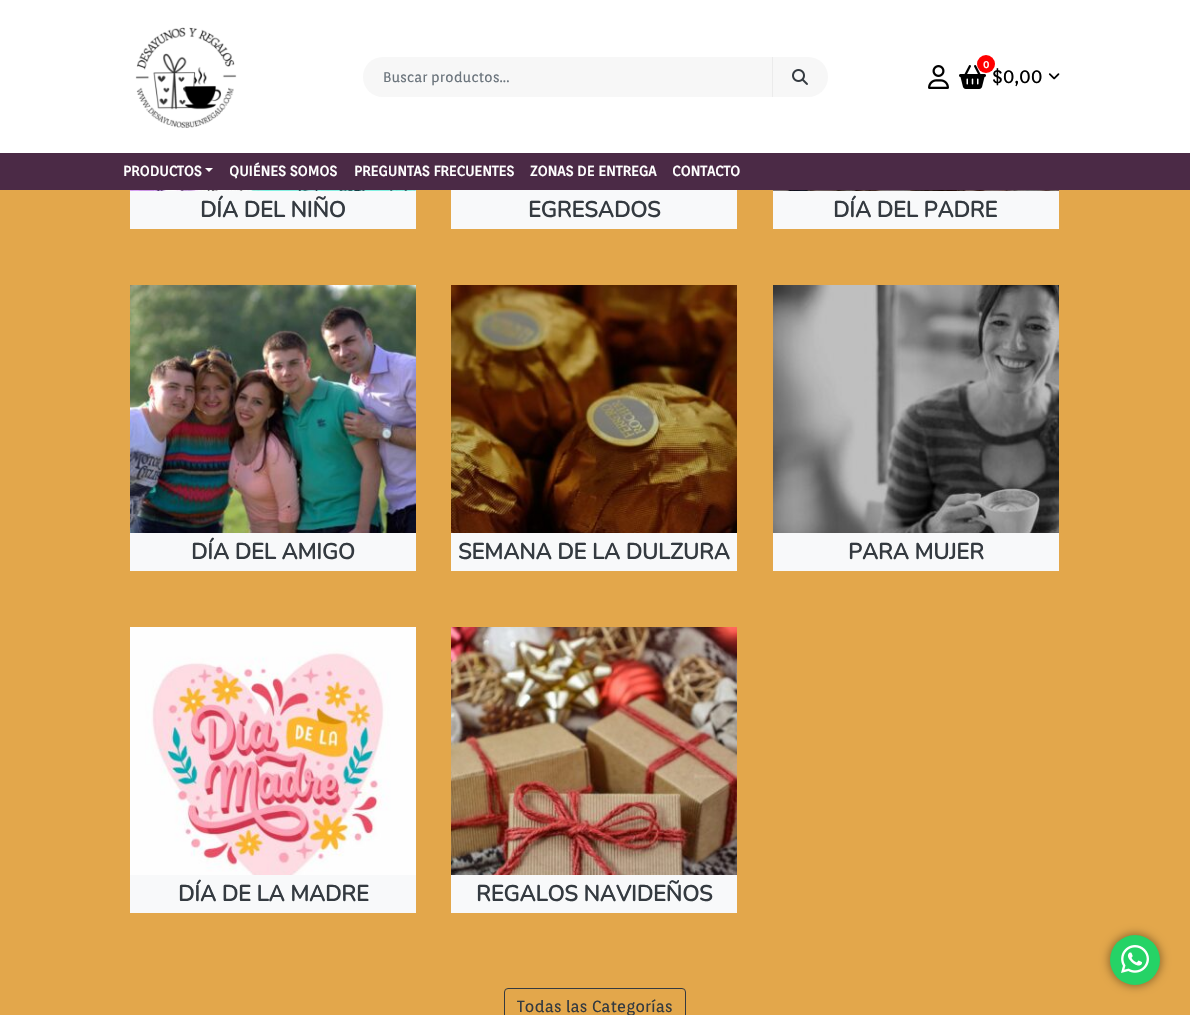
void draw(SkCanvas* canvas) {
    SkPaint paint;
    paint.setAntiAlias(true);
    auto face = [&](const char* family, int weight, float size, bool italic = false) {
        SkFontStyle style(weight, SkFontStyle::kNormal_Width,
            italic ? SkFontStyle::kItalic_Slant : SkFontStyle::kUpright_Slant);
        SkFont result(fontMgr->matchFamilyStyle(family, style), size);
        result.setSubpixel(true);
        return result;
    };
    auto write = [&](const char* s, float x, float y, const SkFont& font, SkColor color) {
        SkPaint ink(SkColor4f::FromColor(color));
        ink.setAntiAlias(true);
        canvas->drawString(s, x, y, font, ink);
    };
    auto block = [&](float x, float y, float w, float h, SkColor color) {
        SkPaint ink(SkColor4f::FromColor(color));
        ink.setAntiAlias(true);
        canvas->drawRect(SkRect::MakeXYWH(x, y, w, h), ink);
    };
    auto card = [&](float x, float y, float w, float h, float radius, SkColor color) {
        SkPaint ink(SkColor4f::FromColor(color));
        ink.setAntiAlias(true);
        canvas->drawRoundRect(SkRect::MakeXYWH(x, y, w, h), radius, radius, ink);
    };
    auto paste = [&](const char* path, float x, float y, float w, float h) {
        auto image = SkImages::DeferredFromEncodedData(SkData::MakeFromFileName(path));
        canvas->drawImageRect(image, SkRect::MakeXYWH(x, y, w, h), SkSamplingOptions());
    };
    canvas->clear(SkColorSetRGB(227, 167, 75));
    block(0, 0, 1190, 153, SK_ColorWHITE);
    paste("pic1.png", 135, 27, 102, 101);
    card(363, 57, 465, 40, 20, SkColorSetRGB(247, 247, 247));
    block(772, 57, 1, 40, SkColorSetRGB(235, 235, 235));
    auto kFont1 = face("Orienta", 400, 14);
    write("Buscar productos...", 383, 82, kFont1, SkColorSetRGB(108, 117, 125));
    paste("pic2.png", 792, 69, 16, 16);
    paste("pic3.png", 928, 65, 21, 24);
    paste("pic4.png", 959, 65, 27, 24);
    auto kFont2 = face("Orienta", 400, 19);
    write("$0,00", 992, 83, kFont2, SK_ColorBLACK);
    paint.setColor(SkColorSetRGB(255, 0, 0));
    canvas->drawCircle(986, 64, 9, paint);
    auto kFont3 = face("Orienta", 700, 10);
    write("0", 983, 68, kFont3, SK_ColorWHITE);
    paste("pic5.png", 1048, 73, 12, 7);
    block(0, 153, 1190, 37, SkColorSetRGB(75, 42, 70));
    auto kFont4 = face("Orienta", 700, 14);
    write("PRODUCTOS", 123, 176, kFont4, SK_ColorWHITE);
    paint.setColor(SK_ColorWHITE);
    canvas->drawPath(SkPathBuilder().moveTo(205, 168).lineTo(213, 168).lineTo(209, 172).close().detach(), paint);
    write("QUIÉNES SOMOS", 229, 176, kFont4, SK_ColorWHITE);
    write("PREGUNTAS FRECUENTES", 354, 176, kFont4, SK_ColorWHITE);
    write("ZONAS DE ENTREGA", 530, 176, kFont4, SK_ColorWHITE);
    write("CONTACTO", 672, 176, kFont4, SK_ColorWHITE);
    paste("pic6.png", 130, 190, 286, 1);
    block(130, 191, 286, 38, SkColorSetRGB(248, 249, 250));
    auto kFont5 = face("Nunito", 700, 22);
    write("DÍA DEL NIÑO", 200, 217, kFont5, SkColorSetRGB(52, 58, 64));
    block(451, 190, 286, 39, SkColorSetRGB(248, 249, 250));
    write("EGRESADOS", 528, 217, kFont5, SkColorSetRGB(52, 58, 64));
    paste("pic7.png", 773, 190, 286, 1);
    block(773, 191, 286, 38, SkColorSetRGB(248, 249, 250));
    write("DÍA DEL PADRE", 833, 217, kFont5, SkColorSetRGB(52, 58, 64));
    paste("pic8.png", 130, 285, 286, 248);
    block(130, 533, 286, 38, SkColorSetRGB(248, 249, 250));
    write("DÍA DEL AMIGO", 191, 559, kFont5, SkColorSetRGB(52, 58, 64));
    paste("pic9.png", 451, 285, 286, 248);
    block(451, 533, 286, 38, SkColorSetRGB(248, 249, 250));
    write("SEMANA DE LA DULZURA", 458, 559, kFont5, SkColorSetRGB(52, 58, 64));
    paste("pic10.png", 773, 285, 286, 248);
    block(773, 533, 286, 38, SkColorSetRGB(248, 249, 250));
    write("PARA MUJER", 848, 559, kFont5, SkColorSetRGB(52, 58, 64));
    paste("pic11.png", 130, 627, 286, 248);
    block(130, 875, 286, 38, SkColorSetRGB(248, 249, 250));
    write("DÍA DE LA MADRE", 178, 901, kFont5, SkColorSetRGB(52, 58, 64));
    paste("pic12.png", 451, 627, 286, 248);
    block(451, 875, 286, 38, SkColorSetRGB(248, 249, 250));
    write("REGALOS NAVIDEÑOS", 476, 901, kFont5, SkColorSetRGB(52, 58, 64));
    paint.setStyle(SkPaint::kStroke_Style);
    paint.setStrokeWidth(1);
    paint.setColor(SkColorSetRGB(52, 58, 64));
    canvas->drawRoundRect(SkRect::MakeXYWH(504.5f, 988.5f, 181, 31), 3.5f, 3.5f, paint);
    auto kFont6 = face("Orienta", 400, 16);
    write("Todas las Categorías", 517, 1012, kFont6, SkColorSetRGB(52, 58, 64));
    paint.setStyle(SkPaint::kFill_Style);
    paint.setColor(SkColorSetARGB(102, 0, 0, 0));
    paint.setMaskFilter(SkMaskFilter::MakeBlur(kNormal_SkBlurStyle, 5));
    canvas->drawRoundRect(SkRect::MakeXYWH(1109, 934, 52, 52), 26, 26, paint);
    paint.setMaskFilter(nullptr);
    paint.setColor(SkColorSetRGB(37, 211, 102));
    canvas->drawCircle(1135, 960, 25, paint);
    paste("pic13.png", 1121, 945, 28, 28);
}
